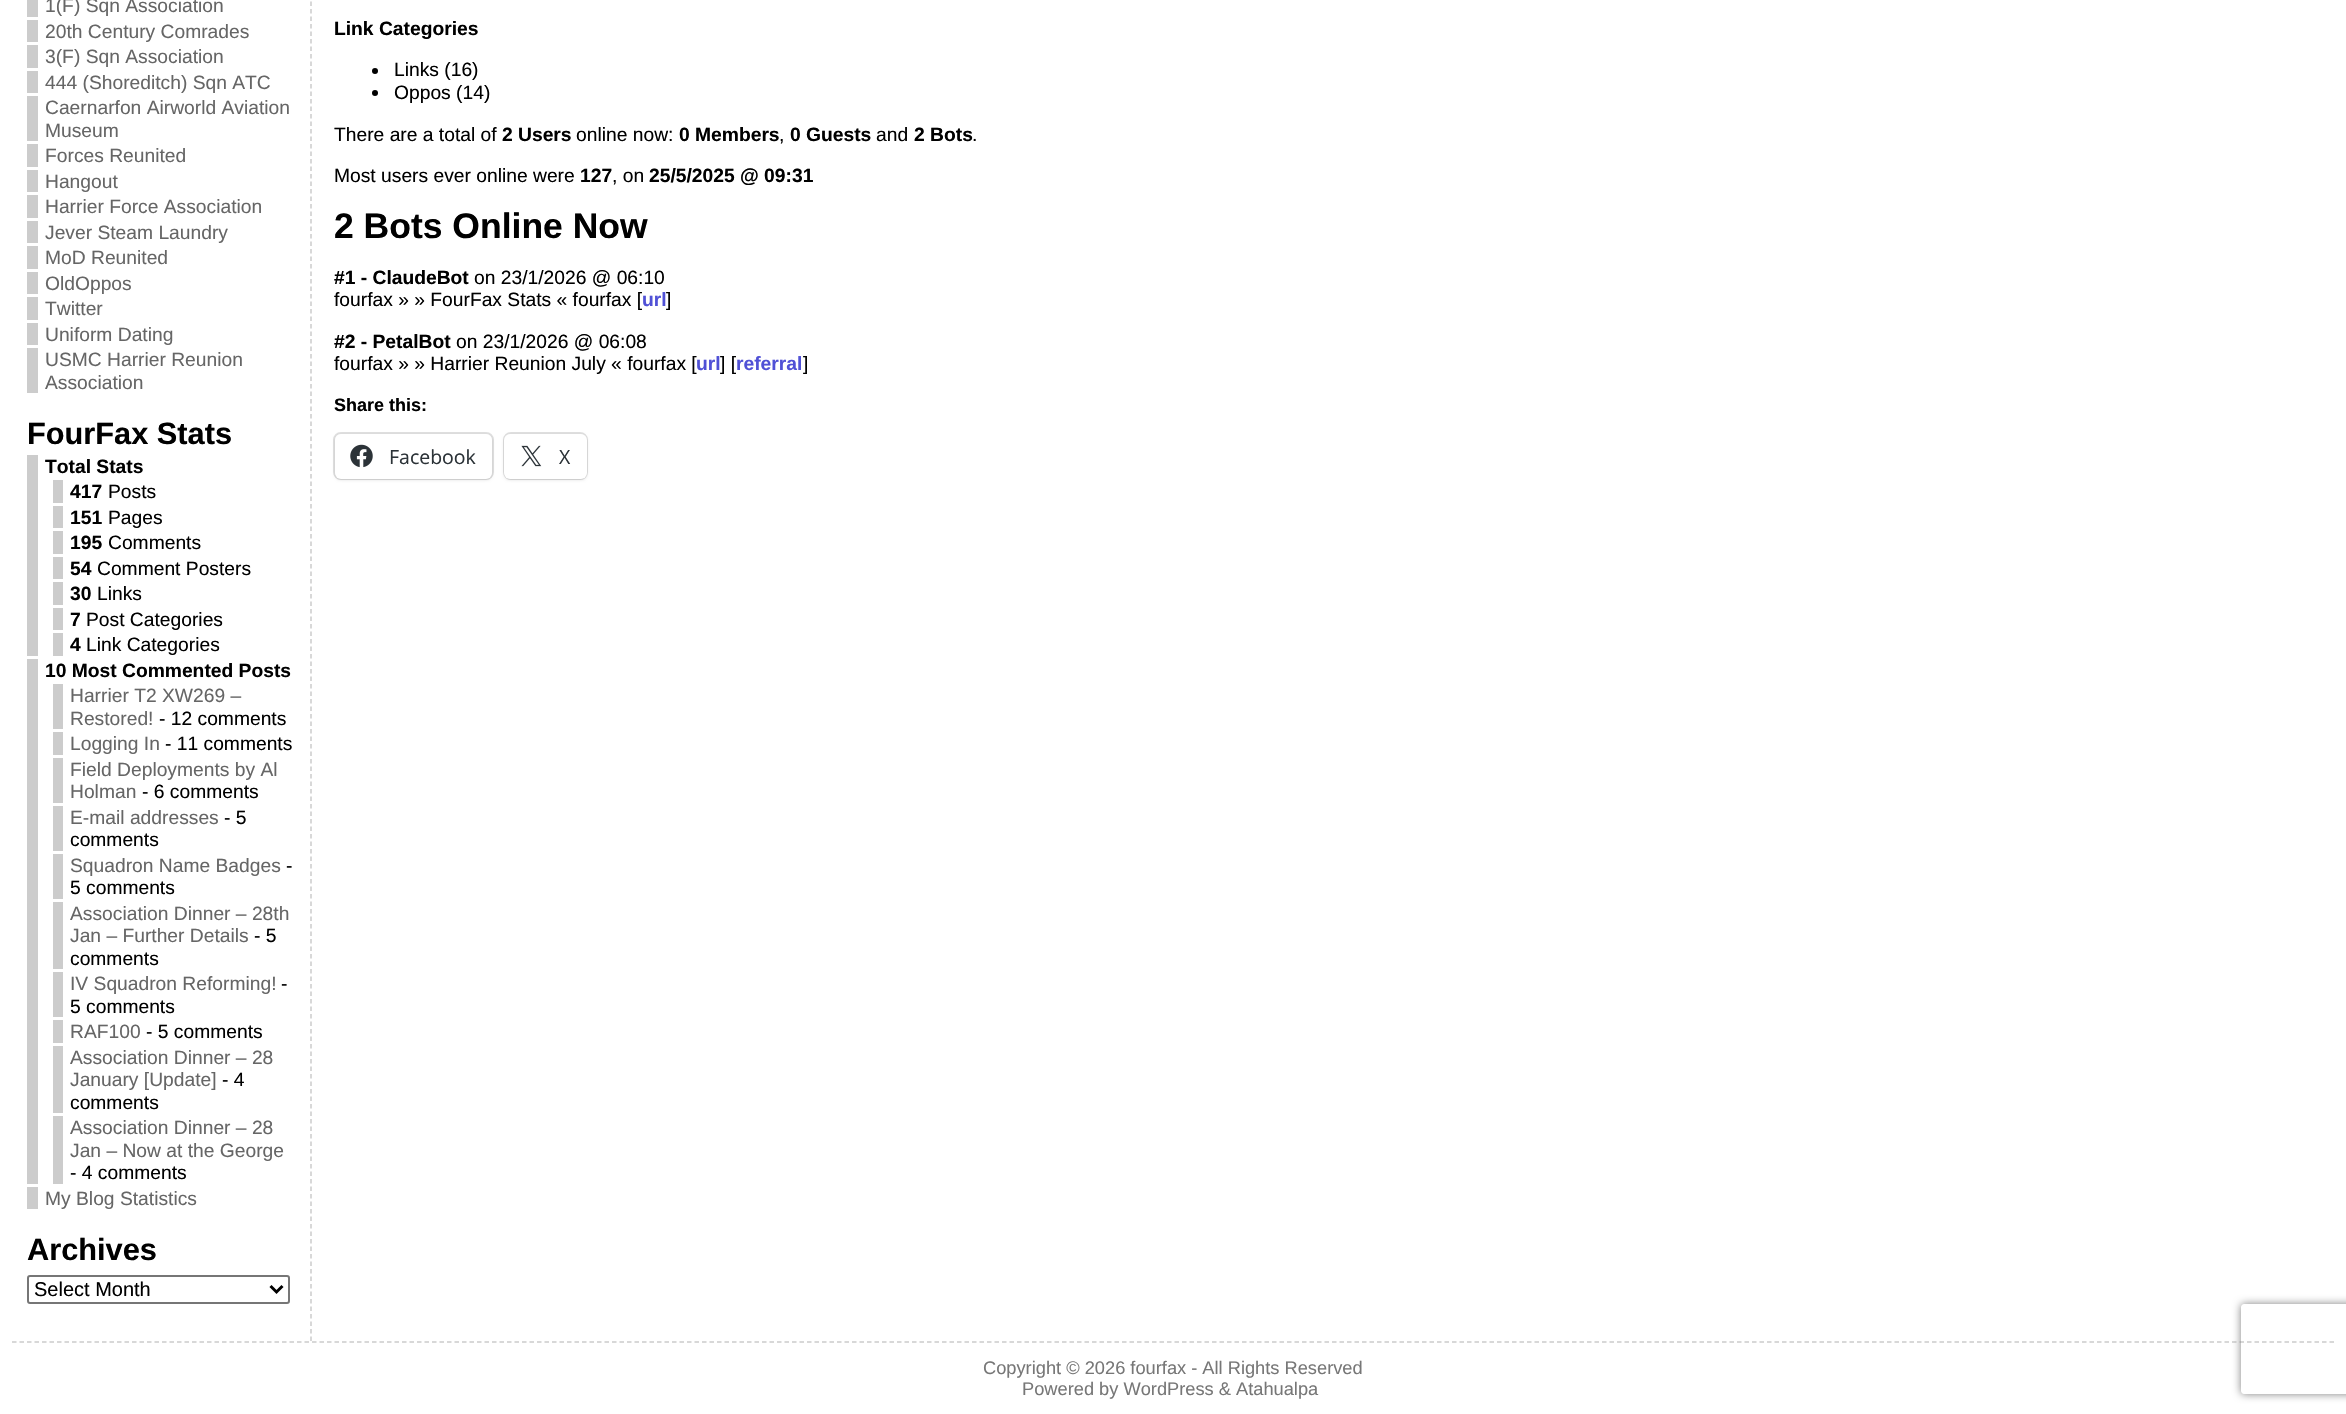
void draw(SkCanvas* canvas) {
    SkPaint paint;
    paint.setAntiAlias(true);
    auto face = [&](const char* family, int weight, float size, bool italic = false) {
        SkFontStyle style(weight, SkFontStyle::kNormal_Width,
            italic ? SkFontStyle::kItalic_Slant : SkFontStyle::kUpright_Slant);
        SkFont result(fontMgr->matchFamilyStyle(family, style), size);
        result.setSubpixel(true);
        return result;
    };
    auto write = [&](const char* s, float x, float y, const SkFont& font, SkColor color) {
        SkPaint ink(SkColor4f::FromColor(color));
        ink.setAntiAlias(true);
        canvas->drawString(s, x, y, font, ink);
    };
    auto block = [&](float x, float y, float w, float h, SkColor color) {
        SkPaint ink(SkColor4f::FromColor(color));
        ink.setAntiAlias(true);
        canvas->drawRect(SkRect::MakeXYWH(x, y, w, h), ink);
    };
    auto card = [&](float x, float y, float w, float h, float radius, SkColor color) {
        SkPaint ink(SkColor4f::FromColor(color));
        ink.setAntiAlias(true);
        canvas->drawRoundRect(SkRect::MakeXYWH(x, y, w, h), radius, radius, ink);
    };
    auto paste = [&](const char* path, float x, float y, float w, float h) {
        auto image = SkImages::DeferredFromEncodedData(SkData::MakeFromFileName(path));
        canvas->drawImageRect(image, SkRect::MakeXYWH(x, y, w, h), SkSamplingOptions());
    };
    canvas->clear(SK_ColorWHITE);
    paint.setStyle(SkPaint::kStroke_Style);
    paint.setStrokeWidth(1.5f);
    paint.setColor(SkColorSetRGB(204, 204, 204));
    paint.setPathEffect(SkDashPathEffect::Make({{4.5f, 3}}, 0));
    canvas->drawPath(SkPathBuilder().moveTo(311, -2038.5f).lineTo(311, 1341).detach(), paint);
    paint.setPathEffect(nullptr);
    block(27, 0, 11, 17, SkColorSetRGB(204, 204, 204));
    auto kFont1 = face("Liberation Sans", 400, 19.25f);
    write("1(F) Sqn Association", 45, 12, kFont1, SkColorSetRGB(102, 102, 102));
    block(27, 20, 11, 22, SkColorSetRGB(204, 204, 204));
    write("20th Century Comrades", 45, 38, kFont1, SkColorSetRGB(102, 102, 102));
    block(27, 45, 11, 23, SkColorSetRGB(204, 204, 204));
    write("3(F) Sqn Association", 45, 63, kFont1, SkColorSetRGB(102, 102, 102));
    block(27, 71, 11, 22, SkColorSetRGB(204, 204, 204));
    write("444 (Shoreditch) Sqn ATC", 45, 89, kFont1, SkColorSetRGB(102, 102, 102));
    block(27, 96, 11, 45, SkColorSetRGB(204, 204, 204));
    write("Caernarfon Airworld Aviation", 45, 114, kFont1, SkColorSetRGB(102, 102, 102));
    write("Museum", 45, 137, kFont1, SkColorSetRGB(102, 102, 102));
    block(27, 144, 11, 23, SkColorSetRGB(204, 204, 204));
    write("Forces Reunited", 45, 162, kFont1, SkColorSetRGB(102, 102, 102));
    block(27, 170, 11, 22, SkColorSetRGB(204, 204, 204));
    write("Hangout", 45, 188, kFont1, SkColorSetRGB(102, 102, 102));
    block(27, 195, 11, 23, SkColorSetRGB(204, 204, 204));
    write("Harrier Force Association", 45, 213, kFont1, SkColorSetRGB(102, 102, 102));
    block(27, 221, 11, 22, SkColorSetRGB(204, 204, 204));
    write("Jever Steam Laundry", 45, 239, kFont1, SkColorSetRGB(102, 102, 102));
    block(27, 246, 11, 23, SkColorSetRGB(204, 204, 204));
    write("MoD Reunited", 45, 264, kFont1, SkColorSetRGB(102, 102, 102));
    block(27, 272, 11, 22, SkColorSetRGB(204, 204, 204));
    write("OldOppos", 45, 290, kFont1, SkColorSetRGB(102, 102, 102));
    block(27, 297, 11, 23, SkColorSetRGB(204, 204, 204));
    write("Twitter", 45, 315, kFont1, SkColorSetRGB(102, 102, 102));
    block(27, 323, 11, 22, SkColorSetRGB(204, 204, 204));
    write("Uniform Dating", 45, 341, kFont1, SkColorSetRGB(102, 102, 102));
    block(27, 348, 11, 45, SkColorSetRGB(204, 204, 204));
    write("USMC Harrier Reunion", 45, 366, kFont1, SkColorSetRGB(102, 102, 102));
    write("Association", 45, 389, kFont1, SkColorSetRGB(102, 102, 102));
    auto kFont2 = face("Liberation Sans", 700, 30.75f);
    write("FourFax Stats", 27, 444, kFont2, SK_ColorBLACK);
    block(27, 455, 11, 201, SkColorSetRGB(204, 204, 204));
    auto kFont3 = face("Liberation Sans", 700, 19.25f);
    write("Total Stats", 45, 473, kFont3, SK_ColorBLACK);
    block(53, 480, 10, 23, SkColorSetRGB(204, 204, 204));
    write("417", 70, 498, kFont3, SK_ColorBLACK);
    write("Posts", 108, 498, kFont1, SK_ColorBLACK);
    block(53, 506, 10, 22, SkColorSetRGB(204, 204, 204));
    write("151", 70, 524, kFont3, SK_ColorBLACK);
    write("Pages", 108, 524, kFont1, SK_ColorBLACK);
    block(53, 531, 10, 23, SkColorSetRGB(204, 204, 204));
    write("195", 70, 549, kFont3, SK_ColorBLACK);
    write("Comments", 108, 549, kFont1, SK_ColorBLACK);
    block(53, 557, 10, 22, SkColorSetRGB(204, 204, 204));
    write("54", 70, 575, kFont3, SK_ColorBLACK);
    write("Comment Posters", 97, 575, kFont1, SK_ColorBLACK);
    block(53, 582, 10, 23, SkColorSetRGB(204, 204, 204));
    write("30", 70, 600, kFont3, SK_ColorBLACK);
    write("Links", 97, 600, kFont1, SK_ColorBLACK);
    block(53, 608, 10, 22, SkColorSetRGB(204, 204, 204));
    write("7", 70, 626, kFont3, SK_ColorBLACK);
    write("Post Categories", 86, 626, kFont1, SK_ColorBLACK);
    block(53, 633, 10, 23, SkColorSetRGB(204, 204, 204));
    write("4", 70, 651, kFont3, SK_ColorBLACK);
    write("Link Categories", 86, 651, kFont1, SK_ColorBLACK);
    block(27, 659, 11, 525, SkColorSetRGB(204, 204, 204));
    write("10 Most Commented Posts", 45, 677, kFont3, SK_ColorBLACK);
    block(53, 684, 10, 45, SkColorSetRGB(204, 204, 204));
    write("Harrier T2 XW269 –", 70, 702, kFont1, SkColorSetRGB(102, 102, 102));
    write("Restored!", 70, 725, kFont1, SkColorSetRGB(102, 102, 102));
    write("- 12 comments", 159, 725, kFont1, SK_ColorBLACK);
    block(53, 732, 10, 23, SkColorSetRGB(204, 204, 204));
    write("Logging In", 70, 750, kFont1, SkColorSetRGB(102, 102, 102));
    write("- 11 comments", 165, 750, kFont1, SK_ColorBLACK);
    block(53, 758, 10, 45, SkColorSetRGB(204, 204, 204));
    write("Field Deployments by Al", 70, 776, kFont1, SkColorSetRGB(102, 102, 102));
    write("Holman", 70, 798, kFont1, SkColorSetRGB(102, 102, 102));
    write("- 6 comments", 142, 798, kFont1, SK_ColorBLACK);
    block(53, 806, 10, 45, SkColorSetRGB(204, 204, 204));
    write("E-mail addresses", 70, 824, kFont1, SkColorSetRGB(102, 102, 102));
    write("- 5", 224, 824, kFont1, SK_ColorBLACK);
    write("comments", 70, 846, kFont1, SK_ColorBLACK);
    block(53, 854, 10, 45, SkColorSetRGB(204, 204, 204));
    write("Squadron Name Badges", 70, 872, kFont1, SkColorSetRGB(102, 102, 102));
    write("-", 286, 872, kFont1, SK_ColorBLACK);
    write("5 comments", 70, 894, kFont1, SK_ColorBLACK);
    block(53, 902, 10, 67, SkColorSetRGB(204, 204, 204));
    write("Association Dinner – 28th", 70, 920, kFont1, SkColorSetRGB(102, 102, 102));
    write("Jan – Further Details", 70, 942, kFont1, SkColorSetRGB(102, 102, 102));
    write("- 5", 254, 942, kFont1, SK_ColorBLACK);
    write("comments", 70, 965, kFont1, SK_ColorBLACK);
    block(53, 972, 10, 45, SkColorSetRGB(204, 204, 204));
    write("IV Squadron Reforming!", 70, 990, kFont1, SkColorSetRGB(102, 102, 102));
    write("-", 281, 990, kFont1, SK_ColorBLACK);
    write("5 comments", 70, 1013, kFont1, SK_ColorBLACK);
    block(53, 1020, 10, 23, SkColorSetRGB(204, 204, 204));
    write("RAF100", 70, 1038, kFont1, SkColorSetRGB(102, 102, 102));
    write("- 5 comments", 146, 1038, kFont1, SK_ColorBLACK);
    block(53, 1046, 10, 67, SkColorSetRGB(204, 204, 204));
    write("Association Dinner – 28", 70, 1064, kFont1, SkColorSetRGB(102, 102, 102));
    write("January [Update]", 70, 1086, kFont1, SkColorSetRGB(102, 102, 102));
    write("- 4", 222, 1086, kFont1, SK_ColorBLACK);
    write("comments", 70, 1109, kFont1, SK_ColorBLACK);
    block(53, 1116, 10, 68, SkColorSetRGB(204, 204, 204));
    write("Association Dinner – 28", 70, 1134, kFont1, SkColorSetRGB(102, 102, 102));
    write("Jan – Now at the George", 70, 1157, kFont1, SkColorSetRGB(102, 102, 102));
    write("- 4 comments", 70, 1179, kFont1, SK_ColorBLACK);
    block(27, 1187, 11, 22, SkColorSetRGB(204, 204, 204));
    write("My Blog Statistics", 45, 1205, kFont1, SkColorSetRGB(102, 102, 102));
    write("Archives", 27, 1260, kFont2, SK_ColorBLACK);
    paint.setStrokeWidth(2);
    paint.setColor(SkColorSetRGB(118, 118, 118));
    canvas->drawRoundRect(SkRect::MakeXYWH(28, 1276, 261, 27), 2, 2, paint);
    paint.setStrokeWidth(3);
    paint.setColor(SK_ColorBLACK);
    canvas->drawPath(SkPathBuilder().moveTo(270.5f, 1286).lineTo(276.5f, 1292).lineTo(282.5f, 1286).detach(), paint);
    auto kFont4 = face("Liberation Sans", 400, 20);
    write("Select Month", 34, 1296, kFont4, SK_ColorBLACK);
    write("Link Categories", 334, 35, kFont3, SK_ColorBLACK);
    paint.setStyle(SkPaint::kFill_Style);
    canvas->drawCircle(375, 71, 3, paint);
    write("Links (16)", 394, 76, kFont1, SK_ColorBLACK);
    canvas->drawCircle(375, 93, 3, paint);
    write("Oppos (14)", 394, 99, kFont1, SK_ColorBLACK);
    write("There are a total of", 334, 141, kFont1, SK_ColorBLACK);
    write("2 Users", 502, 141, kFont3, SK_ColorBLACK);
    write("online now:", 576, 141, kFont1, SK_ColorBLACK);
    write("0 Members", 679, 141, kFont3, SK_ColorBLACK);
    write(",", 779, 141, kFont1, SK_ColorBLACK);
    write("0 Guests", 790, 141, kFont3, SK_ColorBLACK);
    write("and", 876, 141, kFont1, SK_ColorBLACK);
    write("2 Bots", 914, 141, kFont3, SK_ColorBLACK);
    write(".", 972, 141, kFont1, SK_ColorBLACK);
    write("Most users ever online were", 334, 182, kFont1, SK_ColorBLACK);
    write("127", 580, 182, kFont3, SK_ColorBLACK);
    write(", on", 612, 182, kFont1, SK_ColorBLACK);
    write("25/5/2025 @ 09:31", 649, 182, kFont3, SK_ColorBLACK);
    auto kFont5 = face("Liberation Sans", 700, 35.5f);
    write("2 Bots Online Now", 334, 238, kFont5, SK_ColorBLACK);
    write("#1 - ClaudeBot", 334, 284, kFont3, SK_ColorBLACK);
    write("on 23/1/2026 @ 06:10", 474, 284, kFont1, SK_ColorBLACK);
    write("fourfax » » FourFax Stats « fourfax [", 334, 306, kFont1, SK_ColorBLACK);
    write("url", 642, 306, kFont3, SkColorSetRGB(80, 81, 214));
    write("]", 666, 306, kFont1, SK_ColorBLACK);
    write("#2 - PetalBot", 334, 348, kFont3, SK_ColorBLACK);
    write("on 23/1/2026 @ 06:08", 456, 348, kFont1, SK_ColorBLACK);
    write("fourfax » » Harrier Reunion July « fourfax [", 334, 370, kFont1, SK_ColorBLACK);
    write("url", 696, 370, kFont3, SkColorSetRGB(80, 81, 214));
    write("] [", 720, 370, kFont1, SK_ColorBLACK);
    write("referral", 736, 370, kFont3, SkColorSetRGB(80, 81, 214));
    write("]", 803, 370, kFont1, SK_ColorBLACK);
    auto kFont6 = face("Liberation Sans", 700, 18);
    write("Share this:", 334, 411, kFont6, SK_ColorBLACK);
    paint.setStyle(SkPaint::kStroke_Style);
    paint.setStrokeWidth(2);
    paint.setColor(SkColorSetRGB(224, 224, 224));
    canvas->drawRoundRect(SkRect::MakeXYWH(334, 433, 159, 46), 7, 7, paint);
    paint.setStyle(SkPaint::kFill_Style);
    paint.setColor(SkColorSetARGB(31, 0, 0, 0));
    paint.setMaskFilter(SkMaskFilter::MakeBlur(kNormal_SkBlurStyle, 1.5f));
    canvas->drawRoundRect(SkRect::MakeXYWH(335, 435, 157, 45), 6, 6, paint);
    paint.setMaskFilter(nullptr);
    card(335, 434, 157, 45, 6, SK_ColorWHITE);
    paste("pic1.png", 350, 444, 23, 24);
    auto kFont7 = face("Open Sans", 400, 19.5f);
    write("Facebook", 389, 464, kFont7, SkColorSetRGB(44, 51, 56));
    paint.setStyle(SkPaint::kStroke_Style);
    paint.setColor(SkColorSetRGB(224, 224, 224));
    canvas->drawRoundRect(SkRect::MakeXYWH(504, 433, 83, 46), 7, 7, paint);
    paint.setStyle(SkPaint::kFill_Style);
    paint.setColor(SkColorSetARGB(31, 0, 0, 0));
    paint.setMaskFilter(SkMaskFilter::MakeBlur(kNormal_SkBlurStyle, 1.5f));
    canvas->drawRoundRect(SkRect::MakeXYWH(504, 435, 83, 45), 6, 6, paint);
    paint.setMaskFilter(nullptr);
    card(504, 434, 83, 45, 6, SK_ColorWHITE);
    paste("pic2.png", 521, 445, 21, 22);
    write("X", 559, 464, kFont7, SkColorSetRGB(44, 51, 56));
    paint.setStyle(SkPaint::kStroke_Style);
    paint.setStrokeWidth(1.5f);
    paint.setColor(SkColorSetRGB(204, 204, 204));
    paint.setPathEffect(SkDashPathEffect::Make({{4.5f, 3}}, 0));
    canvas->drawPath(SkPathBuilder().moveTo(12, 1342).lineTo(2334, 1342).detach(), paint);
    paint.setPathEffect(nullptr);
    auto kFont8 = face("Liberation Sans", 400, 18.25f);
    write("Copyright © 2026 fourfax - All Rights Reserved", 983, 1374, kFont8, SkColorSetRGB(119, 119, 119));
    write("Powered by WordPress & Atahualpa", 1022, 1395, kFont8, SkColorSetRGB(119, 119, 119));
    canvas->save();
    canvas->clipPath(SkPathBuilder(SkPathFillType::kEvenOdd).moveTo(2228, 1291).lineTo(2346, 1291).lineTo(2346, 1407).lineTo(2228, 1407).close().moveTo(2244, 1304).lineTo(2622, 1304).cubicTo(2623.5f, 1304, 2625, 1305.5f, 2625, 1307).lineTo(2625, 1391).cubicTo(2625, 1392.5f, 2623.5f, 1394, 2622, 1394).lineTo(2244, 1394).cubicTo(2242.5f, 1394, 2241, 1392.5f, 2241, 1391).lineTo(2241, 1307).cubicTo(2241, 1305.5f, 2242.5f, 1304, 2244, 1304).close().detach(), true);
    paint.setStyle(SkPaint::kFill_Style);
    paint.setColor(SkColorSetRGB(128, 128, 128));
    paint.setMaskFilter(SkMaskFilter::MakeBlur(kNormal_SkBlurStyle, 4));
    canvas->drawRoundRect(SkRect::MakeXYWH(2241, 1304, 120, 90), 3, 3, paint);
    paint.setMaskFilter(nullptr);
    canvas->restore();
}
